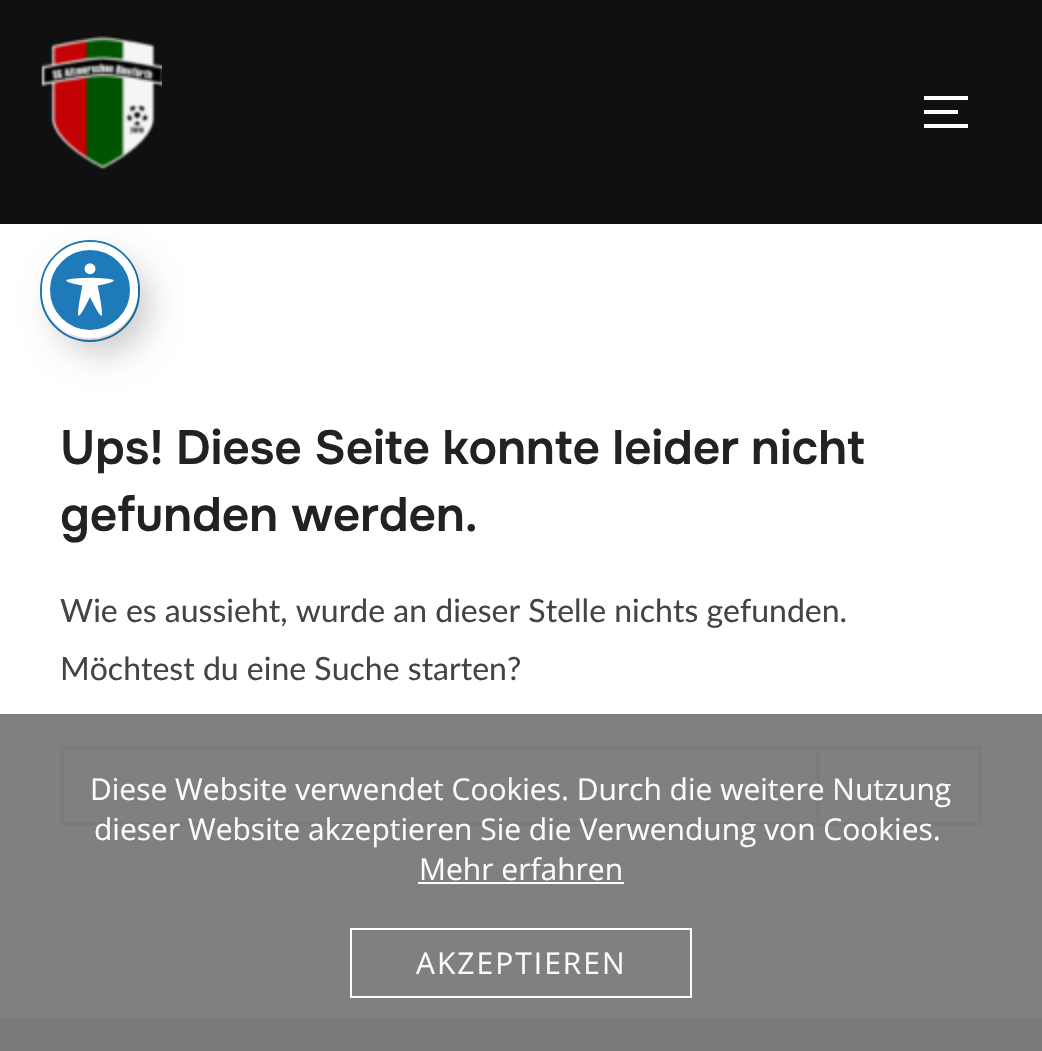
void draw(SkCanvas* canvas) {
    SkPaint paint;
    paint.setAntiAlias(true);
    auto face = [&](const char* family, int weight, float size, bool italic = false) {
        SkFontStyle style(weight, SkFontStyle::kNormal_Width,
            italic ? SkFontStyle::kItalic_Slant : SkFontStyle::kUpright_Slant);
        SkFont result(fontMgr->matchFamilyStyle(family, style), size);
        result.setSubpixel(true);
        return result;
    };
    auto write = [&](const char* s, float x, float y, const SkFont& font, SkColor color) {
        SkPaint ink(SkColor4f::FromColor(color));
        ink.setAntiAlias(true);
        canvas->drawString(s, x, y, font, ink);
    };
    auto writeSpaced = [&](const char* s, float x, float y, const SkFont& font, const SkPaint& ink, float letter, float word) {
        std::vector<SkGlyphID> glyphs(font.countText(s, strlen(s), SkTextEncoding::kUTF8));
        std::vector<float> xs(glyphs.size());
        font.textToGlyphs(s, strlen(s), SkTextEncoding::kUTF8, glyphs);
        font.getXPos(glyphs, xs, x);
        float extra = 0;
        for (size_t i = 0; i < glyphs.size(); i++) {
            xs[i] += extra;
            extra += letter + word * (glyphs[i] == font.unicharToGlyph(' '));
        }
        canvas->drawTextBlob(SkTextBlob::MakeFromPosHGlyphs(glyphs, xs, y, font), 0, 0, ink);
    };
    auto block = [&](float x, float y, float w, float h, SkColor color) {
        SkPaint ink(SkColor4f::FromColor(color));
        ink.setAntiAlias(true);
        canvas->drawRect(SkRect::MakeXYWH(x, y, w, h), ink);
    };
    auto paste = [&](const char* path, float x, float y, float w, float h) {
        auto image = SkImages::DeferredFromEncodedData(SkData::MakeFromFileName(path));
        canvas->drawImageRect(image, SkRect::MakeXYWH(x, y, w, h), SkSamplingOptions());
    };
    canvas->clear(SK_ColorWHITE);
    block(0, 714, 1042, 304, SkColorSetRGB(128, 128, 128));
    paint.setStyle(SkPaint::kStroke_Style);
    paint.setStrokeWidth(2);
    paint.setColor(SkColorSetRGB(30, 122, 185));
    canvas->drawRoundRect(SkRect::MakeXYWH(41, 241, 98, 100), 49, 49, paint);
    block(0, 0, 1042, 224, SkColorSetRGB(16, 16, 16));
    paint.setStyle(SkPaint::kFill_Style);
    paint.setColor(SkColorSetARGB(51, 0, 0, 0));
    paint.setMaskFilter(SkMaskFilter::MakeBlur(kNormal_SkBlurStyle, 16));
    canvas->drawRoundRect(SkRect::MakeXYWH(54, 258, 96, 96), 48, 48, paint);
    paint.setMaskFilter(nullptr);
    paint.setColor(SkColorSetRGB(30, 122, 185));
    canvas->drawCircle(90, 290, 44, paint);
    paint.setStyle(SkPaint::kStroke_Style);
    paint.setStrokeWidth(8);
    paint.setColor(SK_ColorWHITE);
    canvas->drawCircle(90, 290, 44, paint);
    paste("pic1.png", 66, 263, 48, 53);
    paste("pic2.png", 41, 36, 121, 134);
    block(924, 96, 44, 4, SK_ColorWHITE);
    block(924, 110, 34, 4, SK_ColorWHITE);
    block(924, 124, 44, 4, SK_ColorWHITE);
    auto kFont1 = face("Onest", 600, 48);
    paint.setStyle(SkPaint::kFill_Style);
    paint.setColor(SkColorSetRGB(34, 34, 34));
    writeSpaced("Ups! Diese Seite konnte leider nicht", 60, 464, kFont1, paint, 0, -1);
    write("gefunden werden.", 60, 531, kFont1, SkColorSetRGB(34, 34, 34));
    auto kFont2 = face("Lato", 400, 32);
    write("Wie es aussieht, wurde an dieser Stelle nichts gefunden.", 60, 622, kFont2, SkColorSetRGB(68, 68, 68));
    write("Möchtest du eine Suche starten?", 60, 680, kFont2, SkColorSetRGB(68, 68, 68));
    paint.setStyle(SkPaint::kStroke_Style);
    paint.setStrokeWidth(4);
    paint.setColor(SkColorSetRGB(123, 123, 123));
    canvas->drawRect(SkRect::MakeXYWH(62, 748, 918, 76), paint);
    canvas->drawRect(SkRect::MakeXYWH(818, 748, 162, 76), paint);
    block(0, 1018, 1042, 33, SkColorSetRGB(121, 121, 121));
    auto kFont3 = face("Open Sans", 400, 30);
    write("Diese Website verwendet Cookies. Durch die weitere Nutzung", 90, 800, kFont3, SkColorSetRGB(251, 251, 251));
    write("dieser Website akzeptieren Sie die Verwendung von Cookies.", 94, 840, kFont3, SkColorSetRGB(251, 251, 251));
    write("Mehr erfahren", 419, 880, kFont3, SkColorSetRGB(251, 251, 251));
    block(418, 882, 206, 2, SK_ColorWHITE);
    paint.setStrokeWidth(2);
    paint.setColor(SK_ColorWHITE);
    canvas->drawRect(SkRect::MakeXYWH(351, 929, 340, 68), paint);
    paint.setStyle(SkPaint::kFill_Style);
    paint.setColor(SkColorSetRGB(251, 251, 251));
    writeSpaced("AKZEPTIEREN", 416, 974, kFont3, paint, 2, 0);
}
